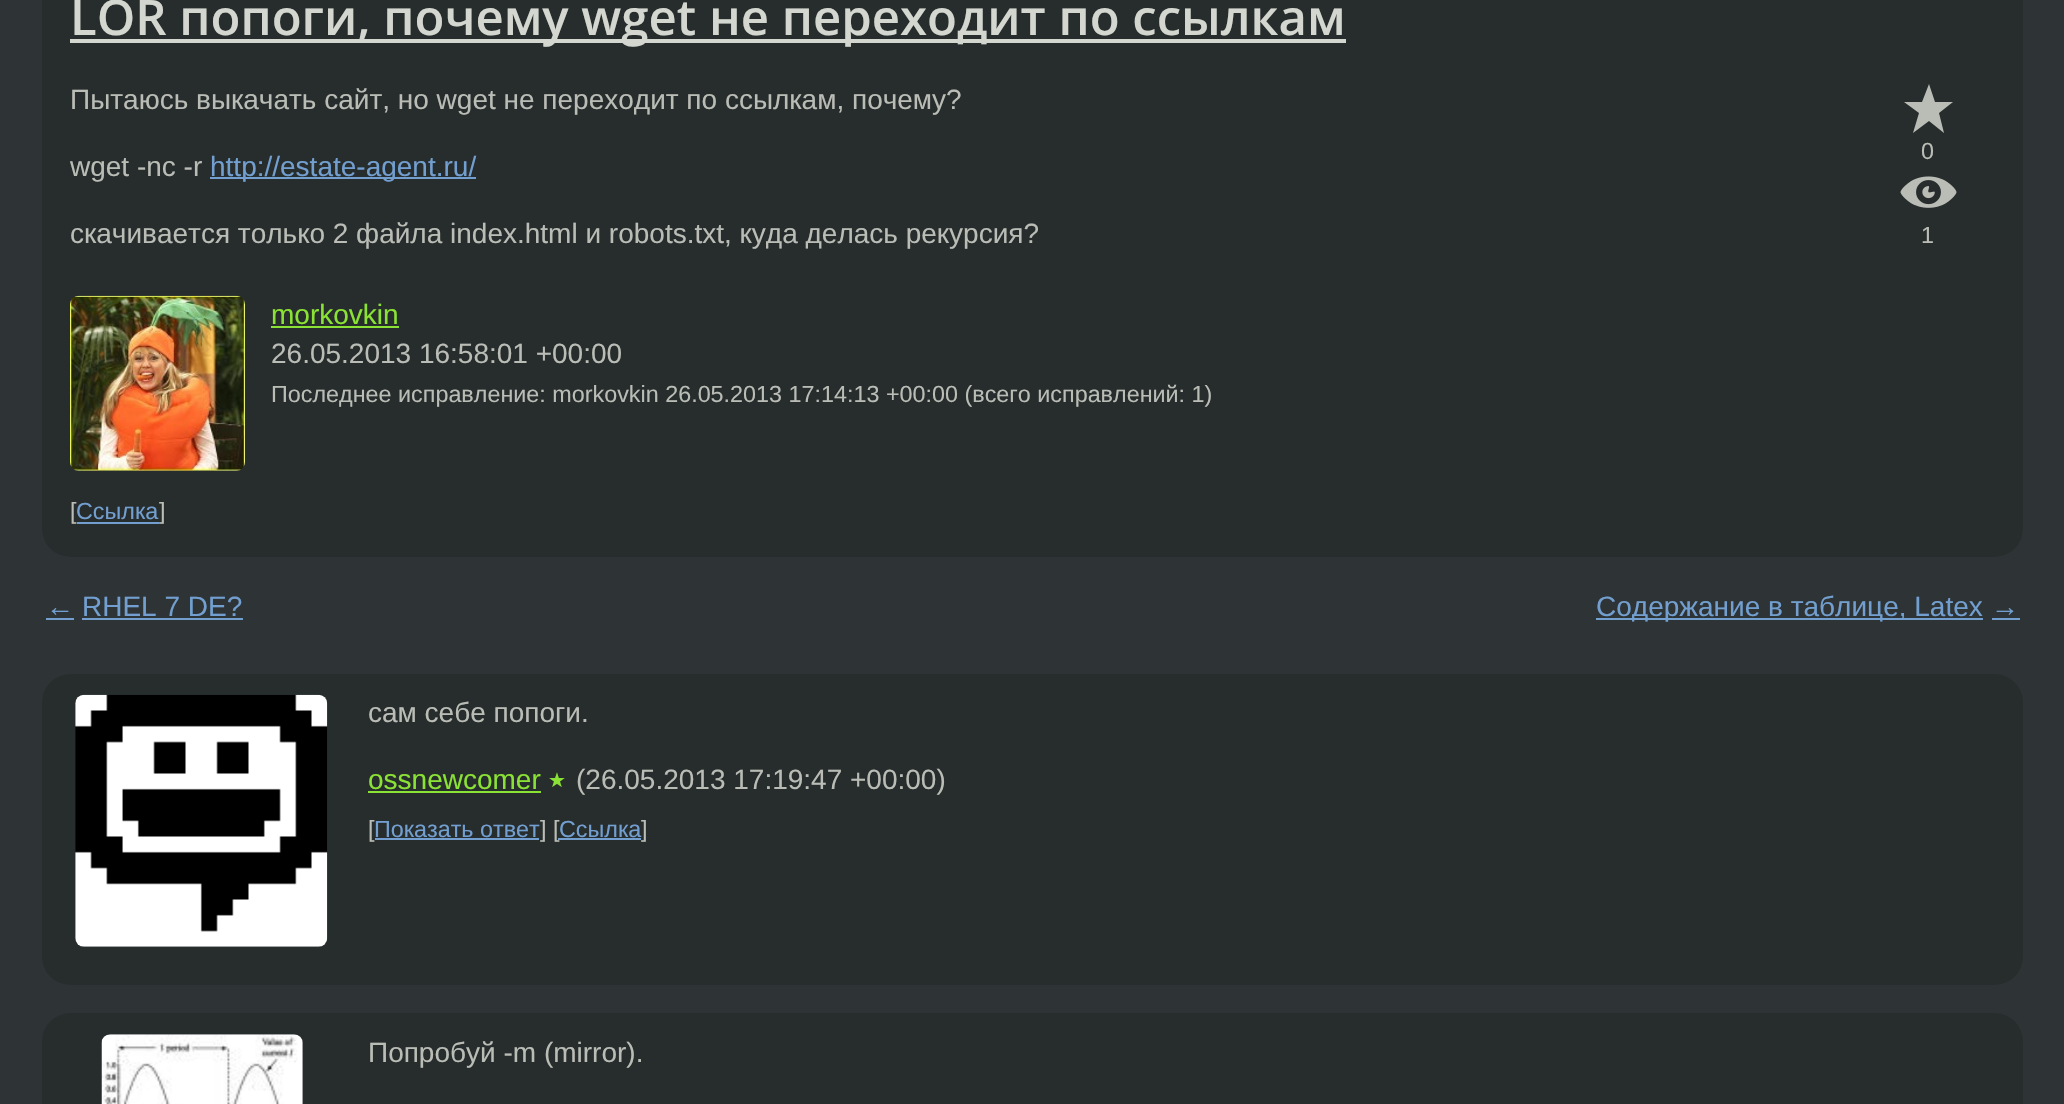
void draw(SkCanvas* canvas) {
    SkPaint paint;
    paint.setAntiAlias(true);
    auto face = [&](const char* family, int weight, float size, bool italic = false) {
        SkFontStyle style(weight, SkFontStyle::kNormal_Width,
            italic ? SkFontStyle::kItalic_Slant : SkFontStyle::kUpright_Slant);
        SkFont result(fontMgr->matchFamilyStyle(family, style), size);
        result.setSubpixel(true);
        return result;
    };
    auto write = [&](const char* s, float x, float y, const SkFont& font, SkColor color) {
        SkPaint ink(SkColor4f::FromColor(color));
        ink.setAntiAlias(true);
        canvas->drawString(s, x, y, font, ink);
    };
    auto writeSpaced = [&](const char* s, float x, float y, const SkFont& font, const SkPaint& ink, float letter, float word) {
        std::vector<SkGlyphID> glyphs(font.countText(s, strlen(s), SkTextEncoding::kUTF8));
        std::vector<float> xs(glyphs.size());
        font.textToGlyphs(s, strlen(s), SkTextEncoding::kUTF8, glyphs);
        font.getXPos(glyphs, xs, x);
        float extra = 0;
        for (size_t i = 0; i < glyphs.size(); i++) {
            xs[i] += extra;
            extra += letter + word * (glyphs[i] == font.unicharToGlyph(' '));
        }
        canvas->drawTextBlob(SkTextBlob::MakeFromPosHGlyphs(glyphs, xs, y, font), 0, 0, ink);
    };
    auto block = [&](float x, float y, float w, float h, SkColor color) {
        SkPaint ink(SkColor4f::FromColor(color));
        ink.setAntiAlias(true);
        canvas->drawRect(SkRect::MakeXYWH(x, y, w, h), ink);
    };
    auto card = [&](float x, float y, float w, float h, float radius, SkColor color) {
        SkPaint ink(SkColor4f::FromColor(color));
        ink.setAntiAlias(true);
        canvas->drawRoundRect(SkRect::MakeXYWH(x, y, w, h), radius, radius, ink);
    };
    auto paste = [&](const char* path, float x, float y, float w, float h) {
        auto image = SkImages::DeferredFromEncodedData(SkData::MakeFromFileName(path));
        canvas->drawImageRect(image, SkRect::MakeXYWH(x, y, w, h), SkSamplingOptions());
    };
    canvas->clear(SkColorSetRGB(46, 52, 54));
    card(42, -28, 1981, 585, 28, SkColorSetRGB(39, 44, 45));
    block(70, 39, 1276, 4, SkColorSetRGB(211, 215, 207));
    auto kFont1 = face("Open Sans", 600, 49.05f);
    write("LOR попоги, почему wget не переходит по ссылкам", 70, 35, kFont1, SkColorSetRGB(211, 215, 207));
    auto kFont2 = face("Liberation Sans", 400, 28);
    write("Пытаюсь выкачать сайт, но wget не переходит по ссылкам, почему?", 70, 109, kFont2, SkColorSetRGB(186, 189, 182));
    write("wget -nc -r", 70, 176, kFont2, SkColorSetRGB(186, 189, 182));
    block(210, 177, 266, 2, SkColorSetRGB(114, 159, 207));
    write("http://estate-agent.ru/", 210, 176, kFont2, SkColorSetRGB(114, 159, 207));
    write("скачивается только 2 файла index.html и robots.txt, куда делась рекурсия?", 70, 243, kFont2, SkColorSetRGB(186, 189, 182));
    paint.setColor(SkColorSetRGB(186, 189, 182));
    canvas->drawPath(SkPathBuilder().moveTo(1929, 84).lineTo(1935, 102).lineTo(1953, 102).lineTo(1939, 113).lineTo(1944, 133).lineTo(1929, 121).lineTo(1913, 133).lineTo(1919, 113).lineTo(1904, 102).lineTo(1922, 102).close().detach(), paint);
    auto kFont3 = face("Liberation Sans", 400, 23.35f);
    write("0", 1921, 159, kFont3, SkColorSetRGB(186, 189, 182));
    paste("pic1.png", 1900, 176, 57, 32);
    write("1", 1921, 243, kFont3, SkColorSetRGB(186, 189, 182));
    paste("pic2.png", 70, 295, 175, 176);
    write("morkovkin", 271, 324, kFont2, SkColorSetRGB(138, 226, 52));
    block(271, 326, 128, 2, SkColorSetRGB(138, 226, 52));
    write("26.05.2013 16:58:01 +00:00", 271, 363, kFont2, SkColorSetRGB(186, 189, 182));
    write("Последнее исправление: morkovkin 26.05.2013 17:14:13 +00:00 (всего исправлений: 1)", 271, 402, kFont3, SkColorSetRGB(186, 189, 182));
    write("[", 70, 519, kFont3, SkColorSetRGB(186, 189, 182));
    block(77, 522, 82, 2, SkColorSetRGB(114, 159, 207));
    write("Ссылка", 76, 519, kFont3, SkColorSetRGB(114, 159, 207));
    write("]", 159, 519, kFont3, SkColorSetRGB(186, 189, 182));
    write("←", 46, 616, kFont2, SkColorSetRGB(114, 159, 207));
    block(46, 618, 28, 2, SkColorSetRGB(114, 159, 207));
    write("RHEL 7 DE?", 82, 616, kFont2, SkColorSetRGB(114, 159, 207));
    block(82, 618, 161, 2, SkColorSetRGB(114, 159, 207));
    block(1596, 618, 387, 2, SkColorSetRGB(114, 159, 207));
    write("Содержание в таблице, Latex", 1596, 616, kFont2, SkColorSetRGB(114, 159, 207));
    write("→", 1991, 616, kFont2, SkColorSetRGB(114, 159, 207));
    block(1992, 618, 28, 2, SkColorSetRGB(114, 159, 207));
    card(42, 674, 1981, 311, 28, SkColorSetRGB(39, 44, 45));
    paste("pic3.png", 75, 694, 253, 253);
    write("сам себе попоги.", 368, 722, kFont2, SkColorSetRGB(186, 189, 182));
    write("ossnewcomer", 368, 789, kFont2, SkColorSetRGB(138, 226, 52));
    block(368, 791, 173, 2, SkColorSetRGB(138, 226, 52));
    auto kFont4 = face("DejaVu Sans", 400, 20);
    paint.setColor(SkColorSetRGB(138, 226, 52));
    writeSpaced("★", 548, 787, kFont4, paint, 3, 0);
    write("(26.05.2013 17:19:47 +00:00)", 576, 789, kFont2, SkColorSetRGB(186, 189, 182));
    write("[", 368, 837, kFont3, SkColorSetRGB(186, 189, 182));
    write("Показать ответ", 374, 837, kFont3, SkColorSetRGB(114, 159, 207));
    write("] [", 540, 837, kFont3, SkColorSetRGB(186, 189, 182));
    block(375, 838, 164, 2, SkColorSetRGB(114, 159, 207));
    block(558, 838, 83, 2, SkColorSetRGB(114, 159, 207));
    write("Ссылка", 559, 837, kFont3, SkColorSetRGB(114, 159, 207));
    write("]", 641, 837, kFont3, SkColorSetRGB(186, 189, 182));
    card(42, 1013, 1981, 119, 28, SkColorSetRGB(39, 44, 45));
    paste("pic4.png", 101, 1034, 202, 70);
    write("Попробуй -m (mirror).", 368, 1062, kFont2, SkColorSetRGB(186, 189, 182));
}
